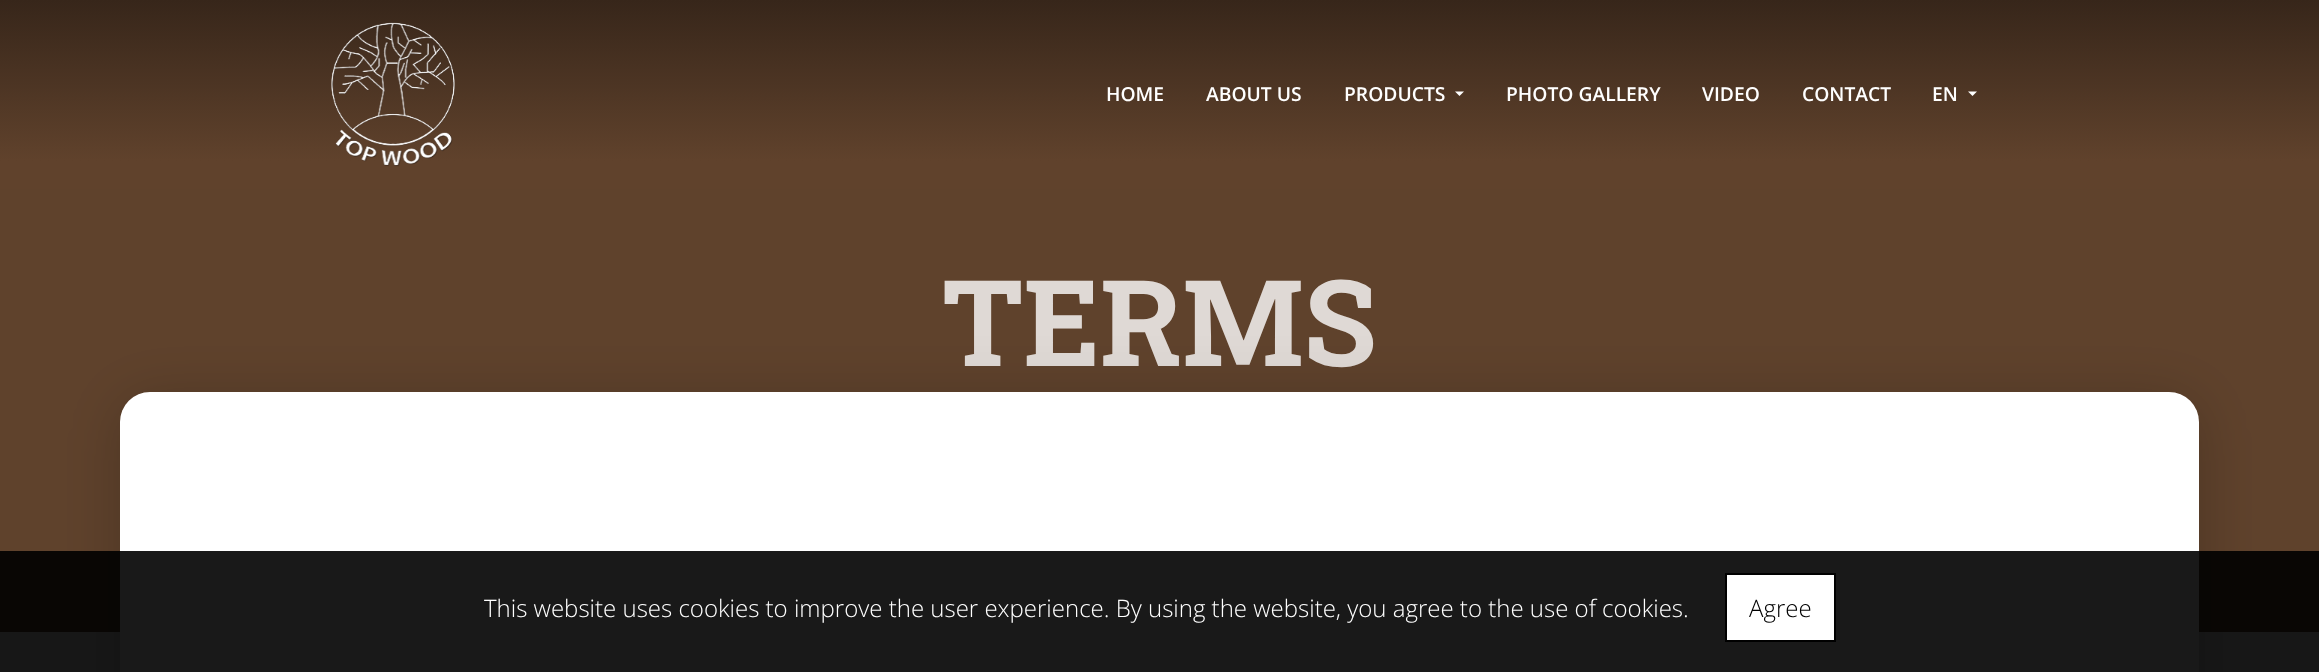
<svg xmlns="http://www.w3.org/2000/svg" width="2319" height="672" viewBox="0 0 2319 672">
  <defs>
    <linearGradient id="g1" gradientUnits="userSpaceOnUse" x1="1160" y1="0" x2="1160" y2="189"><stop offset="0" stop-color="#37261a"/><stop offset="0.85" stop-color="#60422c"/></linearGradient>
    <filter id="blur1" x="-50%" y="-200%" width="200%" height="500%"><feGaussianBlur stdDeviation="30"/></filter>
  </defs>
  <rect width="100%" height="100%" fill="#ececec"/>
  <rect x="0" y="0" width="2319" height="189" fill="url(#g1)"/>
  <image x="331" y="22" width="124" height="145" href="img1.png"/>
  <text x="1106" y="101" font-family="Open Sans" font-size="19.25" font-weight="600" fill="#ffffff">HOME</text>
  <text x="1206" y="101" font-family="Open Sans" font-size="19.25" font-weight="600" fill="#ffffff">ABOUT US</text>
  <text x="1344" y="101" font-family="Open Sans" font-size="19.25" font-weight="600" fill="#ffffff">PRODUCTS</text>
  <path d="M1455 91.5H1464L1459.5 96Z" fill="#ffffff"/>
  <text x="1506" y="101" font-family="Open Sans" font-size="19.25" font-weight="600" fill="#ffffff">PHOTO GALLERY</text>
  <text x="1702" y="101" font-family="Open Sans" font-size="19.25" font-weight="600" fill="#ffffff">VIDEO</text>
  <text x="1802" y="101" font-family="Open Sans" font-size="19.25" font-weight="600" fill="#ffffff">CONTACT</text>
  <text x="1932" y="101" font-family="Open Sans" font-size="19.25" font-weight="600" fill="#ffffff">EN</text>
  <path d="M1968 91.5H1977L1972.5 96Z" fill="#ffffff"/>
  <rect x="0" y="189" width="2319" height="443" fill="#5f422c"/>
  <text x="942" y="366" font-family="Roboto Slab" font-size="120" font-weight="bold" fill="#dfd9d5">TERMS</text>
  <rect x="120" y="399" width="2079" height="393" rx="30" fill="#000000" fill-opacity="0.2" filter="url(#blur1)"/>
  <rect x="120" y="392" width="2079" height="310" rx="30" fill="#ffffff"/>
  <rect x="0" y="551" width="2319" height="121" fill="#000000" fill-opacity="0.9"/>
  <text x="484" y="617" font-family="Open Sans" font-size="24" font-weight="300" fill="#ffffff">This website uses cookies to improve the user experience. By using the website, you agree to the use of cookies.</text>
  <rect x="1726" y="574" width="109" height="67" fill="#ffffff" stroke="#000000" stroke-width="2"/>
  <text x="1749" y="617" font-family="Open Sans" font-size="24" font-weight="300" fill="#000000">Agree</text>
</svg>
